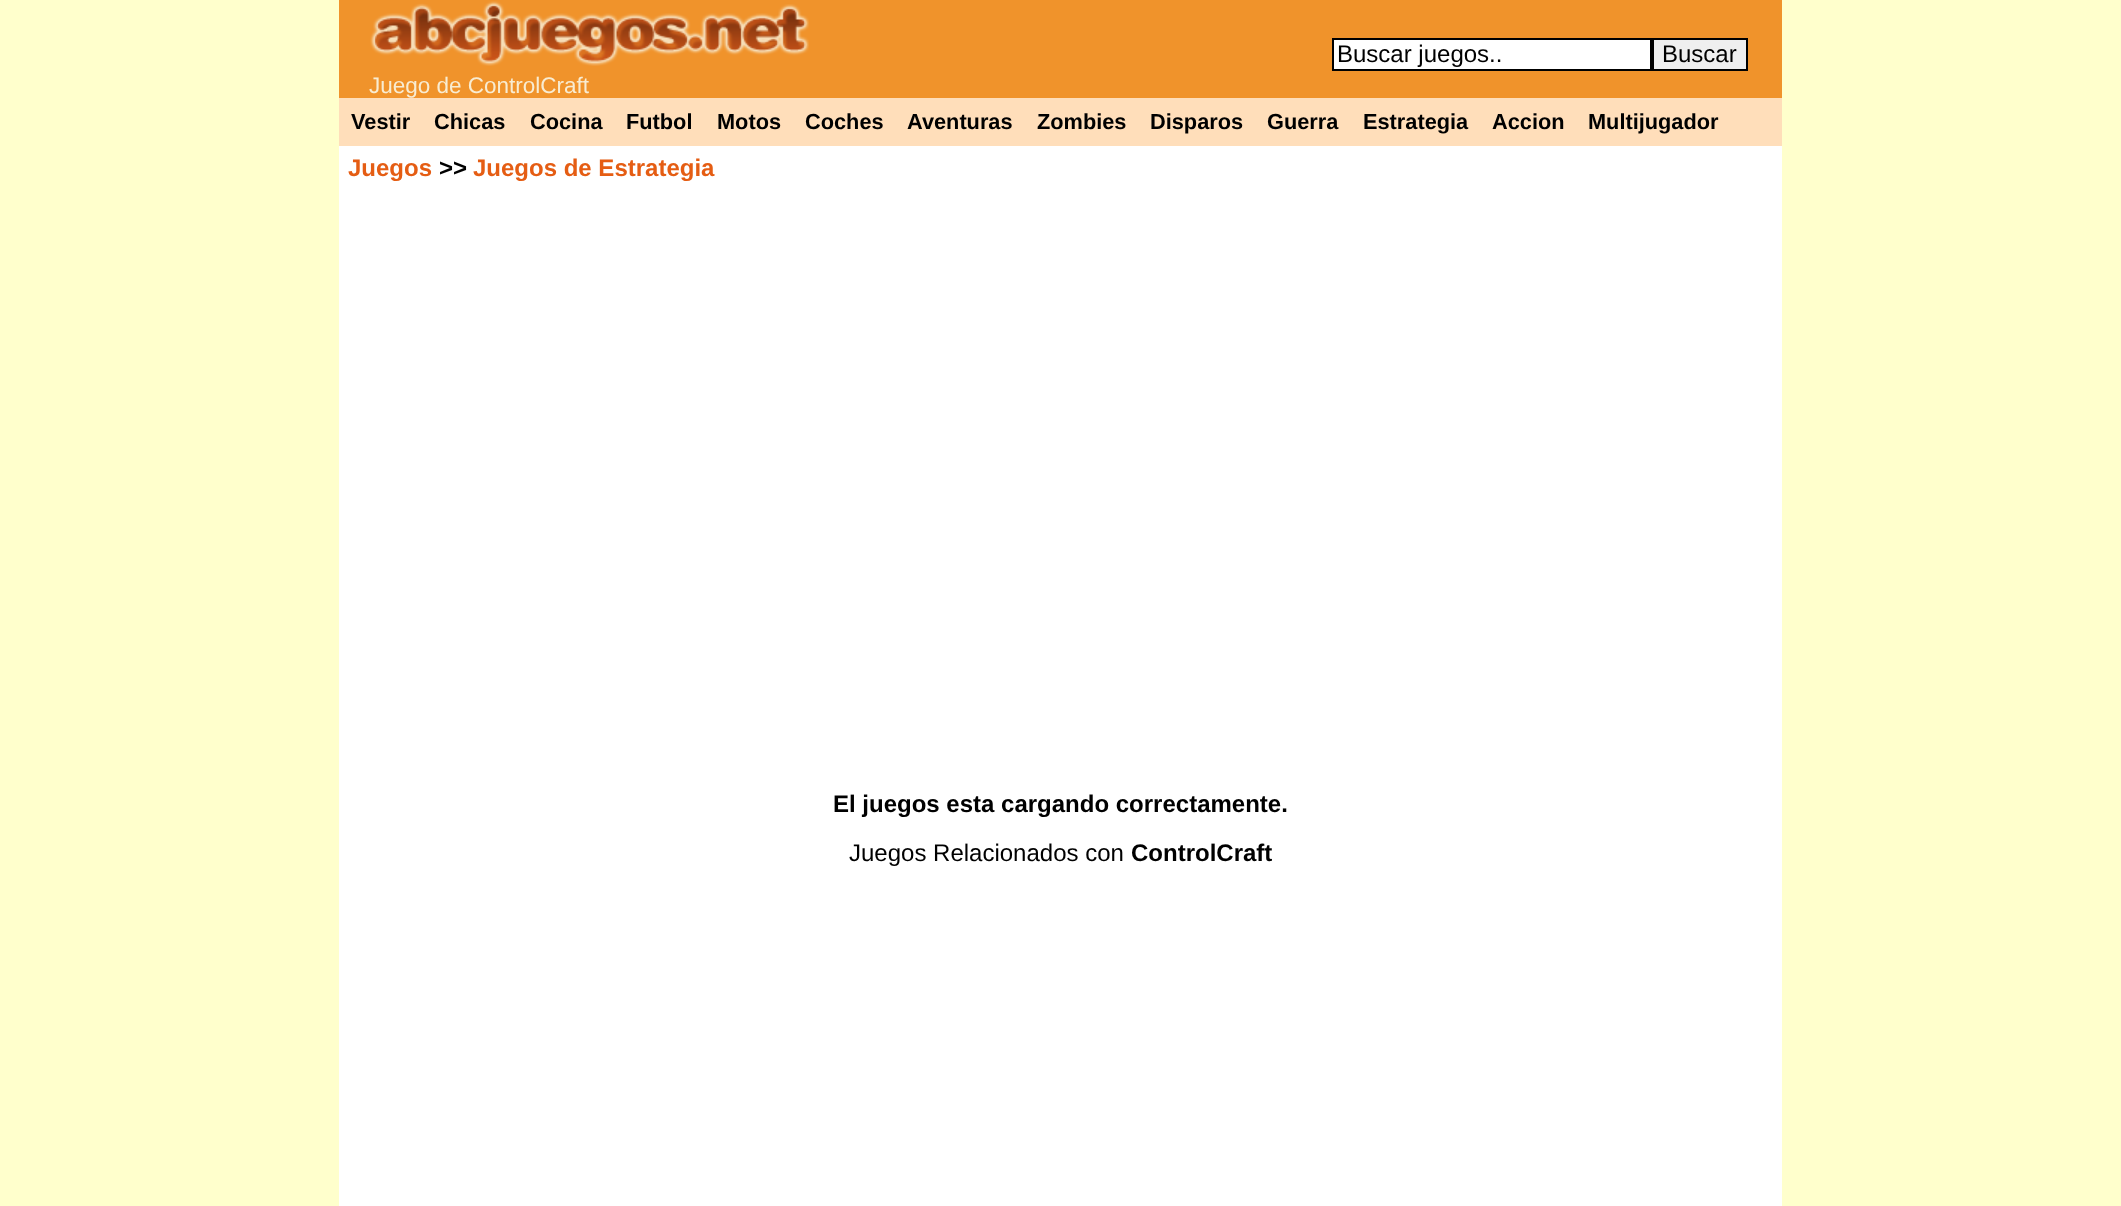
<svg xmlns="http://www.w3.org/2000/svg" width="2121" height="1206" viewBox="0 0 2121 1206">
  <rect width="100%" height="100%" fill="#ffffcc"/>
  <rect x="339" y="0" width="1443" height="98" fill="#f0932b"/>
  <rect x="1333" y="39" width="318" height="31" fill="#ffffff" stroke="#000000" stroke-width="2"/>
  <text x="1337" y="62" font-family="Liberation Sans" font-size="24" fill="#000000">Buscar juegos..</text>
  <rect x="1653" y="39" width="94" height="31" fill="#efefef" stroke="#000000" stroke-width="2"/>
  <text x="1662" y="62" font-family="Liberation Sans" font-size="24" fill="#000000">Buscar</text>
  <image x="370" y="1" width="439" height="65" href="img1.png"/>
  <text x="369" y="93" font-family="Liberation Sans" font-size="22.5" fill="#f8ecd2">Juego de ControlCraft</text>
  <rect x="339" y="98" width="1443" height="48" fill="#ffdeba"/>
  <text x="351" y="129" font-family="Liberation Sans" font-size="21.75" font-weight="bold" fill="#000000">Vestir</text>
  <text x="434" y="129" font-family="Liberation Sans" font-size="21.75" font-weight="bold" fill="#000000">Chicas</text>
  <text x="530" y="129" font-family="Liberation Sans" font-size="21.75" font-weight="bold" fill="#000000">Cocina</text>
  <text x="626" y="129" font-family="Liberation Sans" font-size="21.75" font-weight="bold" fill="#000000">Futbol</text>
  <text x="717" y="129" font-family="Liberation Sans" font-size="21.75" font-weight="bold" fill="#000000">Motos</text>
  <text x="805" y="129" font-family="Liberation Sans" font-size="21.75" font-weight="bold" fill="#000000">Coches</text>
  <text x="907" y="129" font-family="Liberation Sans" font-size="21.75" font-weight="bold" fill="#000000">Aventuras</text>
  <text x="1037" y="129" font-family="Liberation Sans" font-size="21.75" font-weight="bold" fill="#000000">Zombies</text>
  <text x="1150" y="129" font-family="Liberation Sans" font-size="21.75" font-weight="bold" fill="#000000">Disparos</text>
  <text x="1267" y="129" font-family="Liberation Sans" font-size="21.75" font-weight="bold" fill="#000000">Guerra</text>
  <text x="1363" y="129" font-family="Liberation Sans" font-size="21.75" font-weight="bold" fill="#000000">Estrategia</text>
  <text x="1492" y="129" font-family="Liberation Sans" font-size="21.75" font-weight="bold" fill="#000000">Accion</text>
  <text x="1588" y="129" font-family="Liberation Sans" font-size="21.75" font-weight="bold" fill="#000000">Multijugador</text>
  <rect x="339" y="146" width="1443" height="1060" fill="#ffffff"/>
  <text x="348" y="176" font-family="Liberation Sans" font-size="24" font-weight="bold" fill="#e55d13">Juegos</text>
  <text x="439" y="176" font-family="Liberation Sans" font-size="24" font-weight="bold" fill="#000000">&gt;&gt;</text>
  <text x="473" y="176" font-family="Liberation Sans" font-size="24" font-weight="bold" fill="#e55d13">Juegos de Estrategia</text>
  <text x="833" y="812" font-family="Liberation Sans" font-size="24" font-weight="bold" fill="#000000">El juegos esta cargando correctamente.</text>
  <text x="849" y="861" font-family="Liberation Sans" font-size="24" fill="#000000">Juegos Relacionados con</text>
  <text x="1131" y="861" font-family="Liberation Sans" font-size="24" font-weight="bold" fill="#000000">ControlCraft</text>
</svg>
